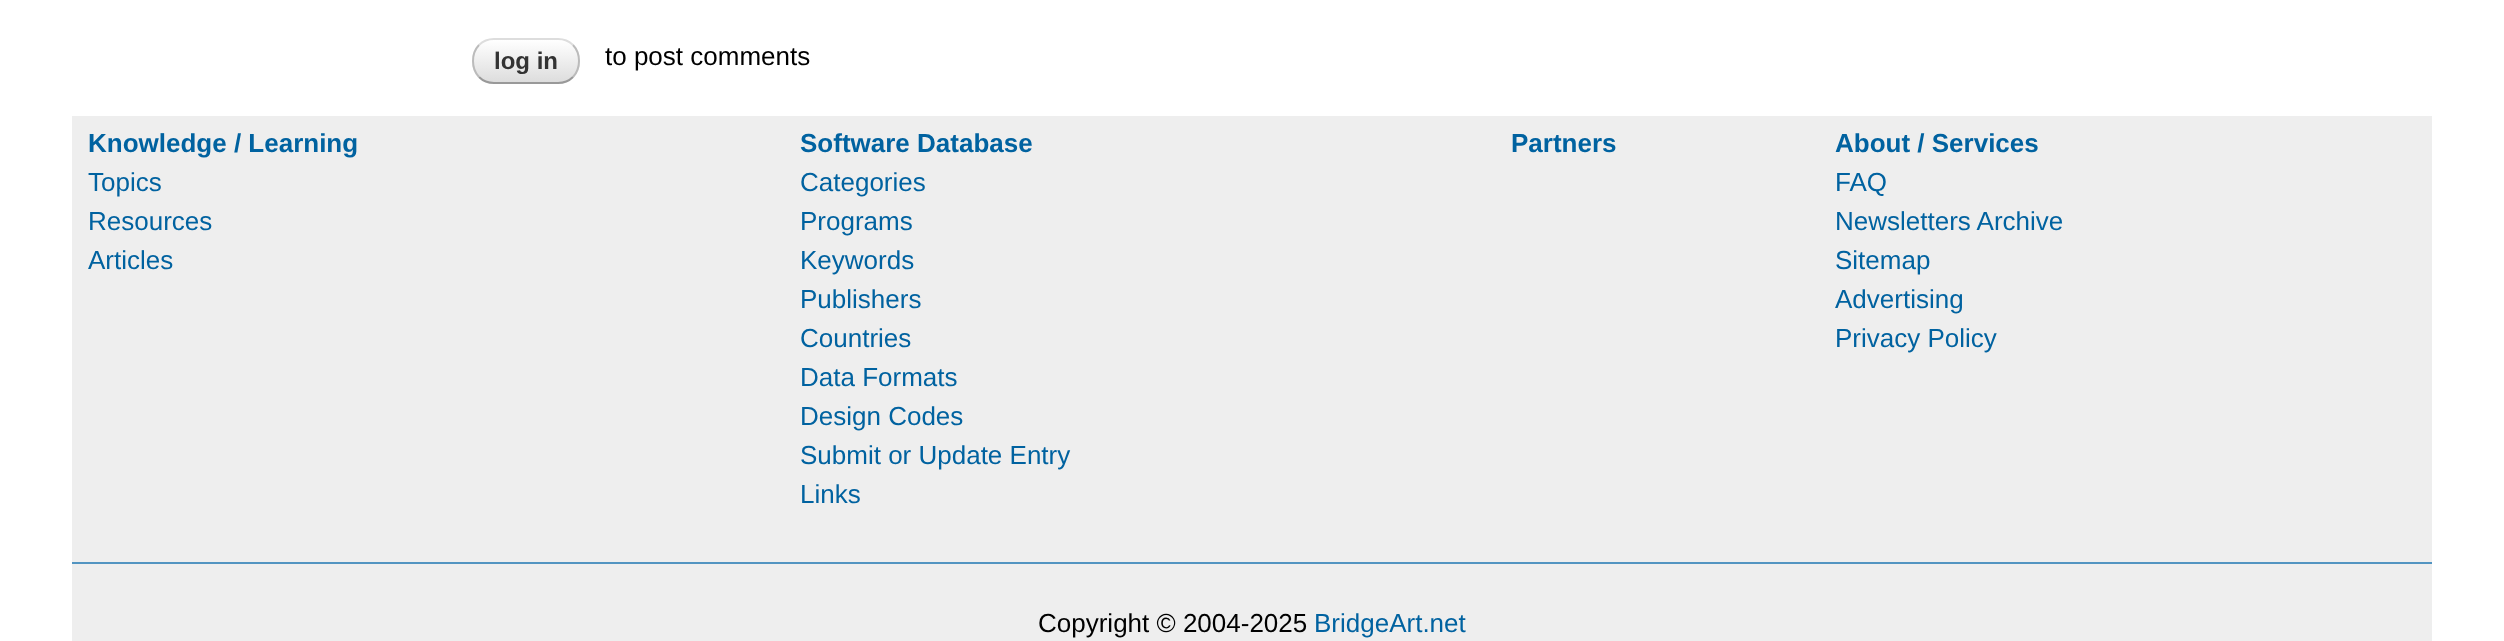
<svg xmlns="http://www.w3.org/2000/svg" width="2504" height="641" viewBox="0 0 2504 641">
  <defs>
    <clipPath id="clip1"><rect x="472" y="38" width="108" height="46" rx="22"/></clipPath>
    <linearGradient id="g1" gradientUnits="userSpaceOnUse" x1="474" y1="40" x2="474" y2="82"><stop offset="0" stop-color="#ffffff"/><stop offset="1" stop-color="#dddddd"/></linearGradient>
  </defs>
  <rect width="100%" height="100%" fill="#ffffff"/>
  <g clip-path="url(#clip1)">
    <rect x="472" y="40" width="108" height="42" fill="url(#g1)"/>
  </g>
  <path d="M479 45C483 41 488.5 39 494 39H558C563.5 39 569 41 573 45" fill="none" stroke="#dddddd" stroke-width="2"/>
  <path d="M573 45C581 53.5 581 68.5 573 77" fill="none" stroke="#bbbbbb" stroke-width="2"/>
  <path d="M573 77C569 81 563.5 83 558 83H494C488.5 83 483 81 479 77" fill="none" stroke="#999999" stroke-width="2"/>
  <path d="M479 77C471 68.5 471 53.5 479 45" fill="none" stroke="#bbbbbb" stroke-width="2"/>
  <text x="494" y="69" font-family="Liberation Sans" font-size="24" font-weight="bold" fill="#333333">log in</text>
  <text x="605" y="65" font-family="Liberation Sans" font-size="26" fill="#000000">to post comments</text>
  <rect x="72" y="116" width="2360" height="525" fill="#eeeeee"/>
  <text x="88" y="152" font-family="Liberation Sans" font-size="26" font-weight="bold" fill="#0062a0">Knowledge / Learning</text>
  <text x="88" y="191" font-family="Liberation Sans" font-size="26" fill="#0062a0">Topics</text>
  <text x="88" y="230" font-family="Liberation Sans" font-size="26" fill="#0062a0">Resources</text>
  <text x="88" y="269" font-family="Liberation Sans" font-size="26" fill="#0062a0">Articles</text>
  <text x="800" y="152" font-family="Liberation Sans" font-size="26" font-weight="bold" fill="#0062a0">Software Database</text>
  <text x="800" y="191" font-family="Liberation Sans" font-size="26" fill="#0062a0">Categories</text>
  <text x="800" y="230" font-family="Liberation Sans" font-size="26" fill="#0062a0">Programs</text>
  <text x="800" y="269" font-family="Liberation Sans" font-size="26" fill="#0062a0">Keywords</text>
  <text x="800" y="308" font-family="Liberation Sans" font-size="26" fill="#0062a0">Publishers</text>
  <text x="800" y="347" font-family="Liberation Sans" font-size="26" fill="#0062a0">Countries</text>
  <text x="800" y="386" font-family="Liberation Sans" font-size="26" fill="#0062a0">Data Formats</text>
  <text x="800" y="425" font-family="Liberation Sans" font-size="26" fill="#0062a0">Design Codes</text>
  <text x="800" y="464" font-family="Liberation Sans" font-size="26" fill="#0062a0">Submit or Update Entry</text>
  <text x="800" y="503" font-family="Liberation Sans" font-size="26" fill="#0062a0">Links</text>
  <text x="1511" y="152" font-family="Liberation Sans" font-size="26" font-weight="bold" fill="#0062a0">Partners</text>
  <text x="1835" y="152" font-family="Liberation Sans" font-size="26" font-weight="bold" fill="#0062a0">About / Services</text>
  <text x="1835" y="191" font-family="Liberation Sans" font-size="26" fill="#0062a0">FAQ</text>
  <text x="1835" y="230" font-family="Liberation Sans" font-size="26" fill="#0062a0">Newsletters Archive</text>
  <text x="1835" y="269" font-family="Liberation Sans" font-size="26" fill="#0062a0">Sitemap</text>
  <text x="1835" y="308" font-family="Liberation Sans" font-size="26" fill="#0062a0">Advertising</text>
  <text x="1835" y="347" font-family="Liberation Sans" font-size="26" fill="#0062a0">Privacy Policy</text>
  <rect x="72" y="562" width="2360" height="2" fill="#5294c1"/>
  <text x="1038" y="632" font-family="Liberation Sans" font-size="26" fill="#000000">Copyright © 2004-2025</text>
  <text x="1314" y="632" font-family="Liberation Sans" font-size="26" fill="#0062a0">BridgeArt.net</text>
</svg>
